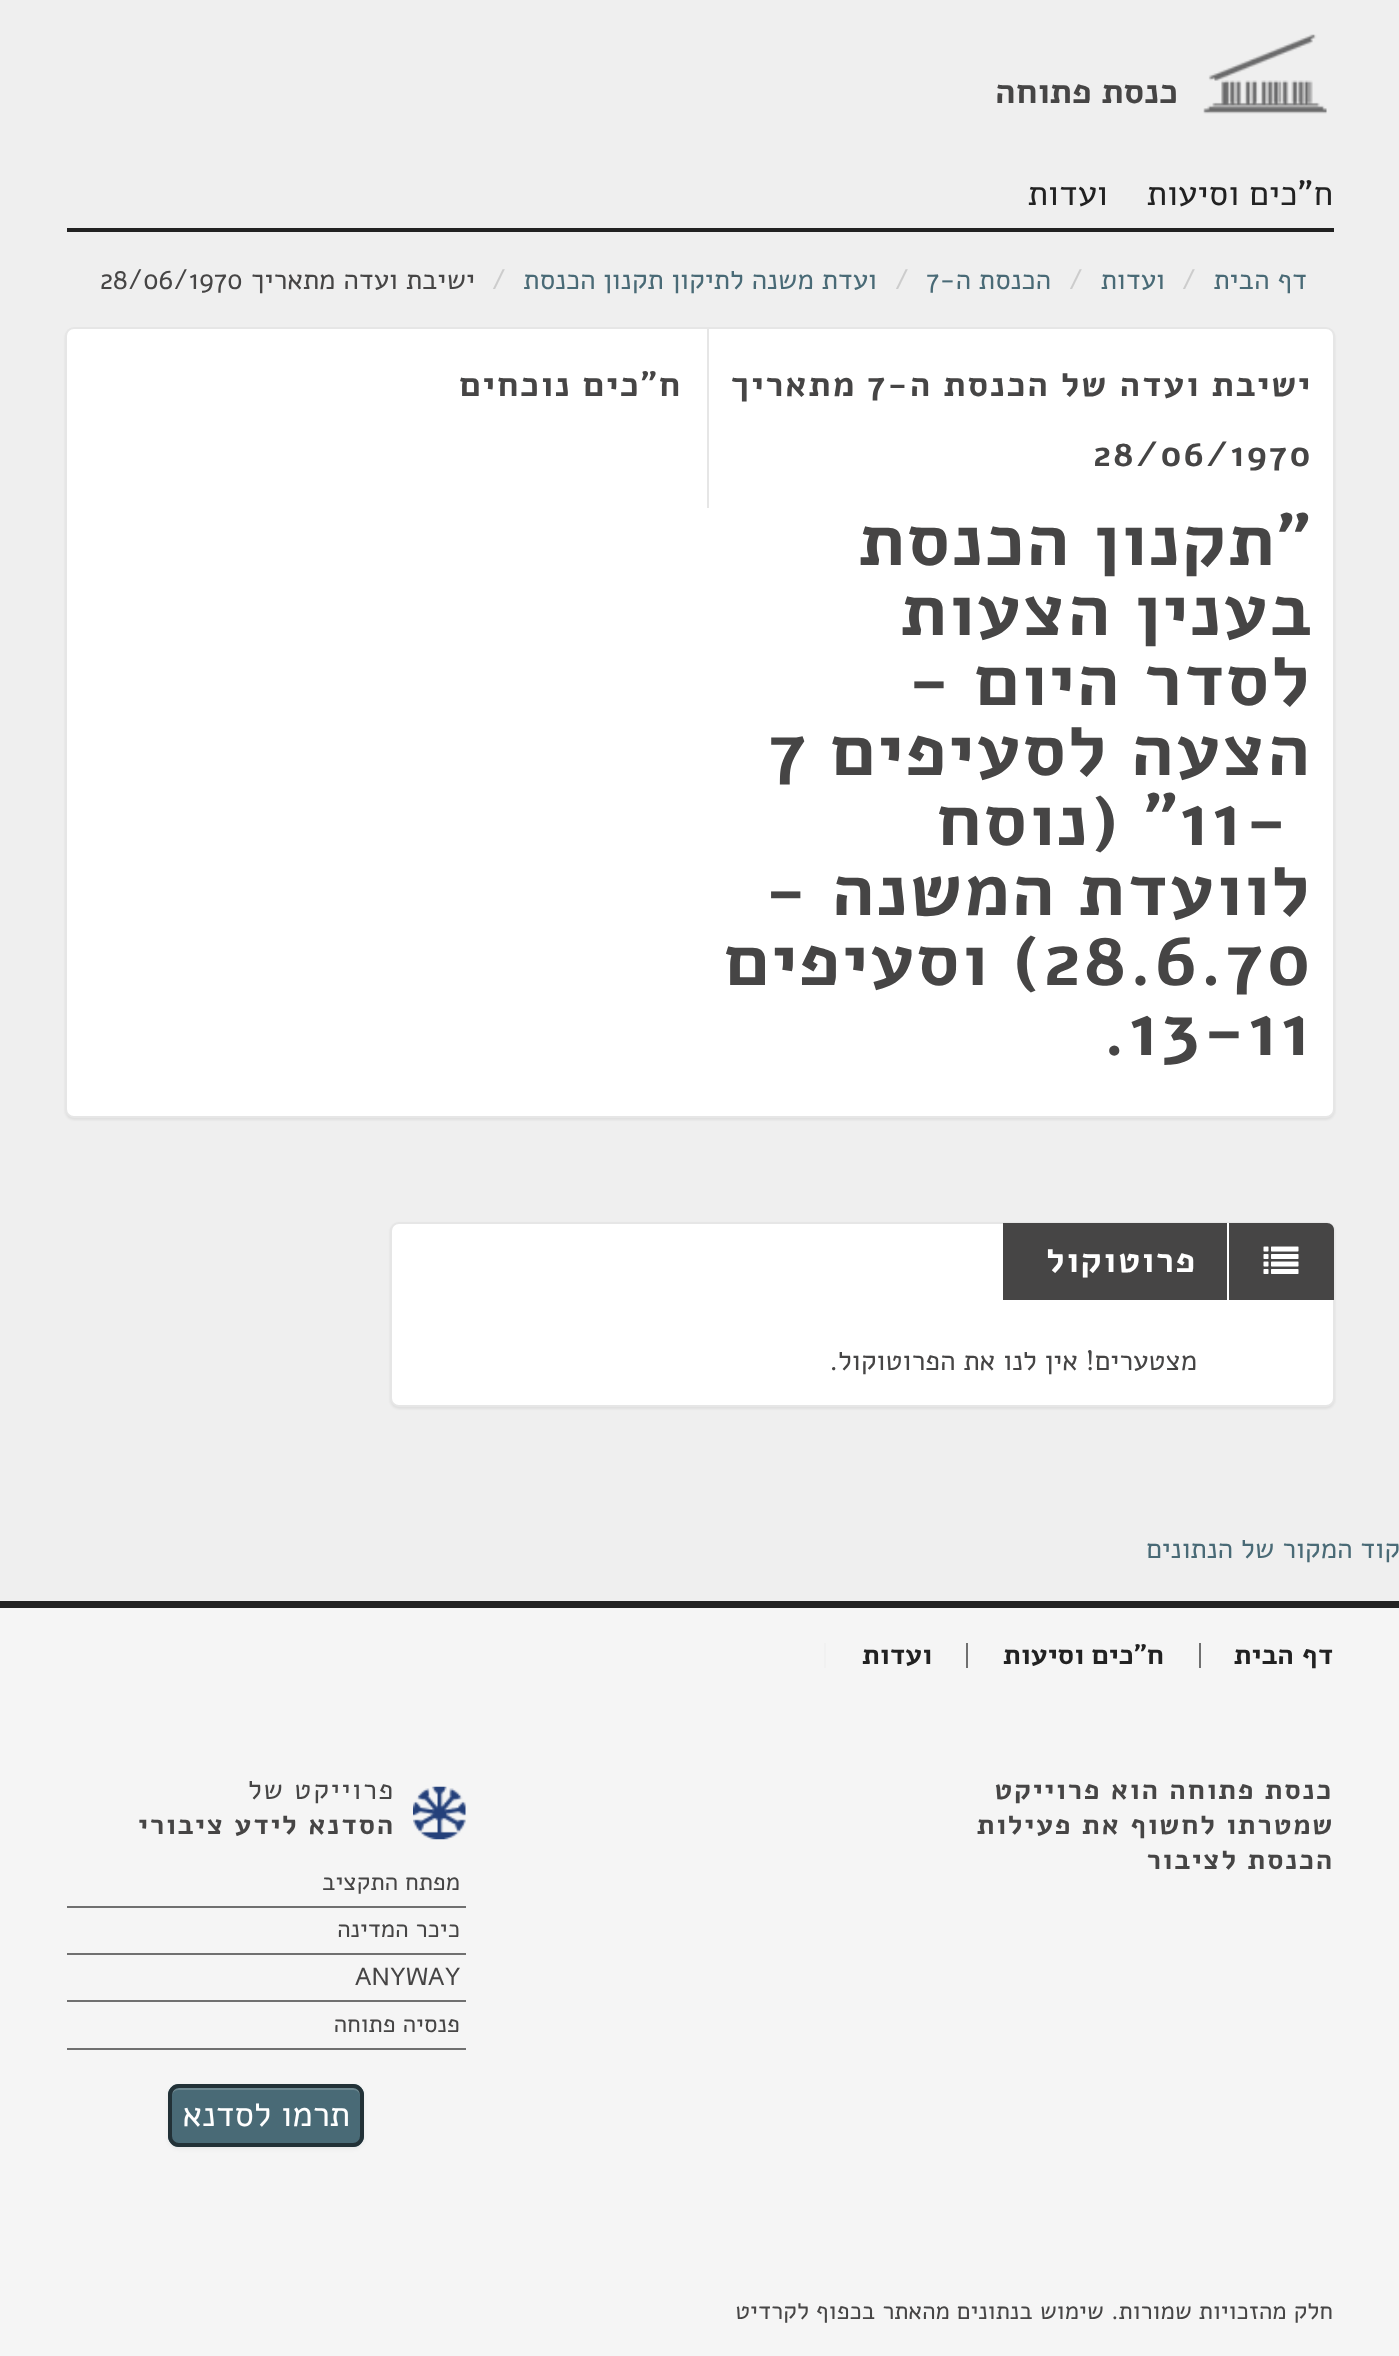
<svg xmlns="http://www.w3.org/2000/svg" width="1399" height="2356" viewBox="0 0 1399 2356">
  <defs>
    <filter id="blur1" x="-50%" y="-200%" width="200%" height="500%"><feGaussianBlur stdDeviation="1"/></filter>
    <filter id="blur2" x="-50%" y="-200%" width="200%" height="500%"><feGaussianBlur stdDeviation="2"/></filter>
  </defs>
  <rect width="100%" height="100%" fill="#efefef"/>
  <rect x="67" y="228" width="1267" height="4" fill="#222222"/>
  <image x="1203" y="34" width="124" height="80" href="img1.png"/>
  <text x="1178" y="103" font-family="Alef" font-size="35" font-weight="bold" direction="rtl" fill="#464545">כנסת פתוחה</text>
  <text x="1333" y="205" font-family="Alef" font-size="35" direction="rtl" fill="#222222">ח"כים וסיעות</text>
  <text x="1108" y="205" font-family="Alef" font-size="35" direction="rtl" fill="#222222">ועדות</text>
  <text x="1307" y="289" font-family="Alef" font-size="28" direction="rtl" fill="#496a76">דף הבית</text>
  <text x="1181" y="289" font-family="Alef" font-size="28" fill="#cccccc">/</text>
  <text x="1165" y="289" font-family="Alef" font-size="28" direction="rtl" fill="#496a76">ועדות</text>
  <text x="1068" y="289" font-family="Alef" font-size="28" fill="#cccccc">/</text>
  <text x="1051" y="289" font-family="Alef" font-size="28" direction="rtl" fill="#496a76">הכנסת ה-</text>
  <text x="926" y="289" font-family="Alef" font-size="28" fill="#496a76">7</text>
  <text x="894" y="289" font-family="Alef" font-size="28" fill="#cccccc">/</text>
  <text x="877" y="289" font-family="Alef" font-size="28" direction="rtl" fill="#496a76">ועדת משנה לתיקון תקנון הכנסת</text>
  <text x="491" y="289" font-family="Alef" font-size="28" fill="#cccccc">/</text>
  <text x="475" y="289" font-family="Alef" font-size="28" direction="rtl" fill="#464545">ישיבת ועדה מתאריך</text>
  <text x="100" y="289" font-family="Alef" font-size="28" fill="#464545">28/06/1970</text>
  <rect x="65" y="329" width="1270" height="791" rx="9" fill="#000000" fill-opacity="0.07" filter="url(#blur1)"/>
  <rect x="66" y="328" width="1268" height="789" rx="8" fill="#ffffff" stroke="#e6e6e6" stroke-width="2"/>
  <text x="1312" y="396" font-family="Alef" font-size="35" font-weight="bold" letter-spacing="1.75" direction="rtl" fill="#464545">ישיבת ועדה של הכנסת ה-</text>
  <text x="867" y="396" font-family="Alef" font-size="35" font-weight="bold" letter-spacing="1.75" fill="#464545">7</text>
  <text x="856" y="396" font-family="Alef" font-size="35" font-weight="bold" letter-spacing="1.75" direction="rtl" fill="#464545">מתאריך</text>
  <text x="1093" y="466" font-family="Alef" font-size="35" font-weight="bold" letter-spacing="1.75" fill="#464545">28/06/1970</text>
  <text x="1312" y="565" font-family="Alef" font-size="73.5" font-weight="bold" letter-spacing="1.75" direction="rtl" fill="#464545">״תקנון הכנסת</text>
  <text x="1313" y="635" font-family="Alef" font-size="73.5" font-weight="bold" letter-spacing="1.75" direction="rtl" fill="#464545">בענין הצעות</text>
  <text x="1312" y="705" font-family="Alef" font-size="73.5" font-weight="bold" letter-spacing="1.75" direction="rtl" fill="#464545">לסדר היום -</text>
  <text x="1312" y="775" font-family="Alef" font-size="73.5" font-weight="bold" letter-spacing="1.75" direction="rtl" fill="#464545">הצעה לסעיפים</text>
  <text x="768" y="775" font-family="Alef" font-size="73.5" font-weight="bold" letter-spacing="1.75" fill="#464545">7</text>
  <text x="1179" y="845" font-family="Alef" font-size="73.5" font-weight="bold" letter-spacing="1.75" fill="#464545">11-</text>
  <text x="1179" y="845" font-family="Alef" font-size="73.5" font-weight="bold" letter-spacing="1.75" direction="rtl" fill="#464545">״ (נוסח</text>
  <text x="1312" y="915" font-family="Alef" font-size="73.5" font-weight="bold" letter-spacing="1.75" direction="rtl" fill="#464545">לוועדת המשנה -</text>
  <text x="1043" y="985" font-family="Alef" font-size="73.5" font-weight="bold" letter-spacing="1.75" fill="#464545">28.6.70</text>
  <text x="1043" y="985" font-family="Alef" font-size="73.5" font-weight="bold" letter-spacing="1.75" direction="rtl" fill="#464545">) וסעיפים</text>
  <text x="1102" y="1055" font-family="Alef" font-size="73.5" font-weight="bold" letter-spacing="1.75" fill="#464545">.13-11</text>
  <rect x="707" y="329" width="2" height="179" fill="#e6e6e6"/>
  <text x="682" y="396" font-family="Alef" font-size="35" font-weight="bold" letter-spacing="1.75" direction="rtl" fill="#464545">ח"כים נוכחים</text>
  <rect x="390" y="1223" width="945" height="186" rx="9" fill="#000000" fill-opacity="0.07" filter="url(#blur1)"/>
  <rect x="391" y="1223" width="943" height="183" rx="8" fill="#ffffff" stroke="#e6e6e6" stroke-width="2"/>
  <path d="M1003 1223H1327C1331 1223 1334 1226 1334 1230V1300H1003Z" fill="#464545"/>
  <rect x="1227" y="1223" width="2" height="77" fill="#ffffff"/>
  <image x="1263" y="1246" width="36" height="28" href="img2.png"/>
  <text x="1197" y="1272" font-family="Alef" font-size="35" font-weight="bold" letter-spacing="1.75" direction="rtl" fill="#ffffff">פרוטוקול</text>
  <text x="1197" y="1370" font-family="Alef" font-size="28" direction="rtl" fill="#464545">מצטערים! אין לנו את הפרוטוקול.</text>
  <text x="1400" y="1558" font-family="Alef" font-size="28" direction="rtl" fill="#496a76">קוד המקור של הנתונים</text>
  <rect x="0" y="1608" width="1399" height="748" fill="#f5f5f5"/>
  <rect x="0" y="1601" width="1399" height="7" fill="#222222"/>
  <text x="1333" y="1664" font-family="Alef" font-size="28" font-weight="bold" direction="rtl" fill="#222222">דף הבית</text>
  <rect x="1199" y="1643" width="2" height="25" fill="#707070"/>
  <text x="1164" y="1664" font-family="Alef" font-size="28" font-weight="bold" direction="rtl" fill="#222222">ח"כים וסיעות</text>
  <rect x="966" y="1643" width="2" height="25" fill="#707070"/>
  <rect x="824" y="1643" width="2" height="25" fill="#f1f1f1"/>
  <text x="932" y="1664" font-family="Alef" font-size="28" font-weight="bold" direction="rtl" fill="#222222">ועדות</text>
  <text x="1333" y="1799" font-family="Alef" font-size="28" font-weight="bold" letter-spacing="1.75" direction="rtl" fill="#464545">כנסת פתוחה הוא פרוייקט</text>
  <text x="1334" y="1834" font-family="Alef" font-size="28" font-weight="bold" letter-spacing="1.75" direction="rtl" fill="#464545">שמטרתו לחשוף את פעילות</text>
  <text x="1334" y="1869" font-family="Alef" font-size="28" font-weight="bold" letter-spacing="1.75" direction="rtl" fill="#464545">הכנסת לציבור</text>
  <image x="413" y="1786" width="53" height="54" href="img3.png"/>
  <text x="395" y="1799" font-family="Alef" font-size="28" letter-spacing="1.75" direction="rtl" fill="#464545">פרוייקט של</text>
  <text x="395" y="1834" font-family="Alef" font-size="28" font-weight="bold" letter-spacing="1.75" direction="rtl" fill="#464545">הסדנא לידע ציבורי</text>
  <rect x="67" y="1906" width="399" height="2" fill="#707070"/>
  <text x="460" y="1890" font-family="Alef" font-size="24.5" direction="rtl" fill="#464545">מפתח התקציב</text>
  <rect x="67" y="1953" width="399" height="2" fill="#707070"/>
  <text x="460" y="1937" font-family="Alef" font-size="24.5" direction="rtl" fill="#464545">כיכר המדינה</text>
  <rect x="67" y="2000" width="399" height="2" fill="#707070"/>
  <text x="355" y="1985" font-family="Alef" font-size="24.5" fill="#464545">ANYWAY</text>
  <rect x="67" y="2048" width="399" height="2" fill="#707070"/>
  <text x="460" y="2032" font-family="Alef" font-size="24.5" direction="rtl" fill="#464545">פנסיה פתוחה</text>
  <rect x="168" y="2086" width="196" height="63" rx="11" fill="#000000" fill-opacity="0.05" filter="url(#blur2)"/>
  <rect x="168" y="2084" width="196" height="63" rx="11" fill="#496a76"/>
  <path d="M178 2090H354C357 2090 360 2093 360 2096V2138L359 2142C360 2140 361 2139 361 2137V2095C361 2091 358 2088 354 2088H179C175 2088 172 2091 172 2095V2096C172 2093 175 2090 178 2090Z" fill="#6d8891"/>
  <rect x="170" y="2086" width="192" height="59" rx="9" fill="none" stroke="#223137" stroke-width="4"/>
  <text x="350" y="2126" font-family="Alef" font-size="35" direction="rtl" fill="#ffffff">תרמו לסדנא</text>
  <text x="1333" y="2319" font-family="Alef" font-size="24.5" direction="rtl" fill="#464545">חלק מהזכויות שמורות. שימוש בנתונים מהאתר בכפוף לקרדיט</text>
</svg>
